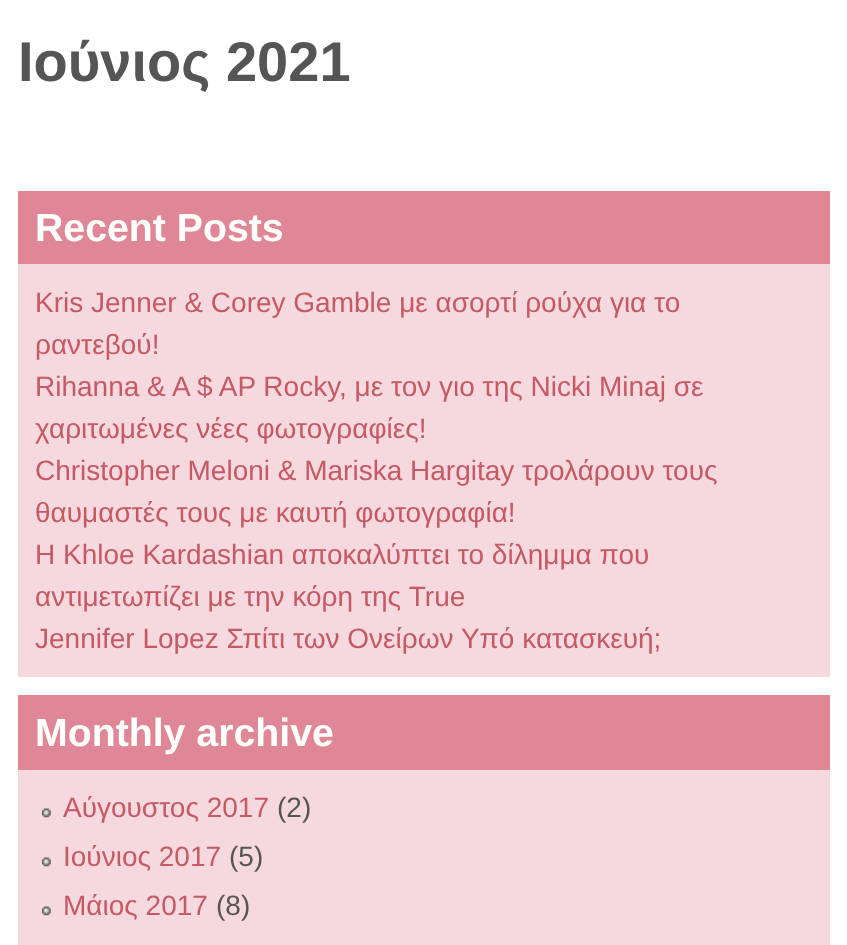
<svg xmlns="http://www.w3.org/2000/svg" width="847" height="945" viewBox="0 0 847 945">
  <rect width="100%" height="100%" fill="#ffffff"/>
  <text x="18" y="81" font-family="Liberation Sans" font-size="56" font-weight="bold" fill="#555555">Ιούνιος 2021</text>
  <rect x="18" y="264" width="812" height="413" fill="#f5d9de"/>
  <rect x="18" y="191" width="812" height="73" fill="#df8796"/>
  <text x="35" y="241" font-family="Liberation Sans" font-size="39.25" font-weight="bold" fill="#fffffc">Recent Posts</text>
  <text x="35" y="312" font-family="Liberation Sans" font-size="28" fill="#c55964">Kris Jenner &amp; Corey Gamble με ασορτί ρούχα για το</text>
  <text x="35" y="354" font-family="Liberation Sans" font-size="28" fill="#c55964">ραντεβού!</text>
  <text x="35" y="396" font-family="Liberation Sans" font-size="28" fill="#c55964">Rihanna &amp; A $ AP Rocky, με τον γιο της Nicki Minaj σε</text>
  <text x="35" y="438" font-family="Liberation Sans" font-size="28" fill="#c55964">χαριτωμένες νέες φωτογραφίες!</text>
  <text x="35" y="480" font-family="Liberation Sans" font-size="28" fill="#c55964">Christopher Meloni &amp; Mariska Hargitay τρολάρουν τους</text>
  <text x="35" y="522" font-family="Liberation Sans" font-size="28" fill="#c55964">θαυμαστές τους με καυτή φωτογραφία!</text>
  <text x="35" y="564" font-family="Liberation Sans" font-size="28" fill="#c55964">Η Khloe Kardashian αποκαλύπτει το δίλημμα που</text>
  <text x="35" y="606" font-family="Liberation Sans" font-size="28" fill="#c55964">αντιμετωπίζει με την κόρη της True</text>
  <text x="35" y="648" font-family="Liberation Sans" font-size="28" fill="#c55964">Jennifer Lopez Σπίτι των Ονείρων Υπό κατασκευή;</text>
  <rect x="18" y="770" width="812" height="175" fill="#f5d9de"/>
  <rect x="18" y="695" width="812" height="75" fill="#df8796"/>
  <text x="35" y="746" font-family="Liberation Sans" font-size="39.25" font-weight="bold" fill="#fffffc">Monthly archive</text>
  <image x="42" y="808" width="9" height="10" href="img1.png"/>
  <text x="63" y="817" font-family="Liberation Sans" font-size="28" fill="#c55964">Αύγουστος 2017</text>
  <text x="277" y="817" font-family="Liberation Sans" font-size="28" fill="#555555">(2)</text>
  <image x="42" y="857" width="9" height="10" href="img1.png"/>
  <text x="63" y="866" font-family="Liberation Sans" font-size="28" fill="#c55964">Ιούνιος 2017</text>
  <text x="229" y="866" font-family="Liberation Sans" font-size="28" fill="#555555">(5)</text>
  <image x="42" y="906" width="9" height="10" href="img1.png"/>
  <text x="63" y="915" font-family="Liberation Sans" font-size="28" fill="#c55964">Μάιος 2017</text>
  <text x="216" y="915" font-family="Liberation Sans" font-size="28" fill="#555555">(8)</text>
</svg>
